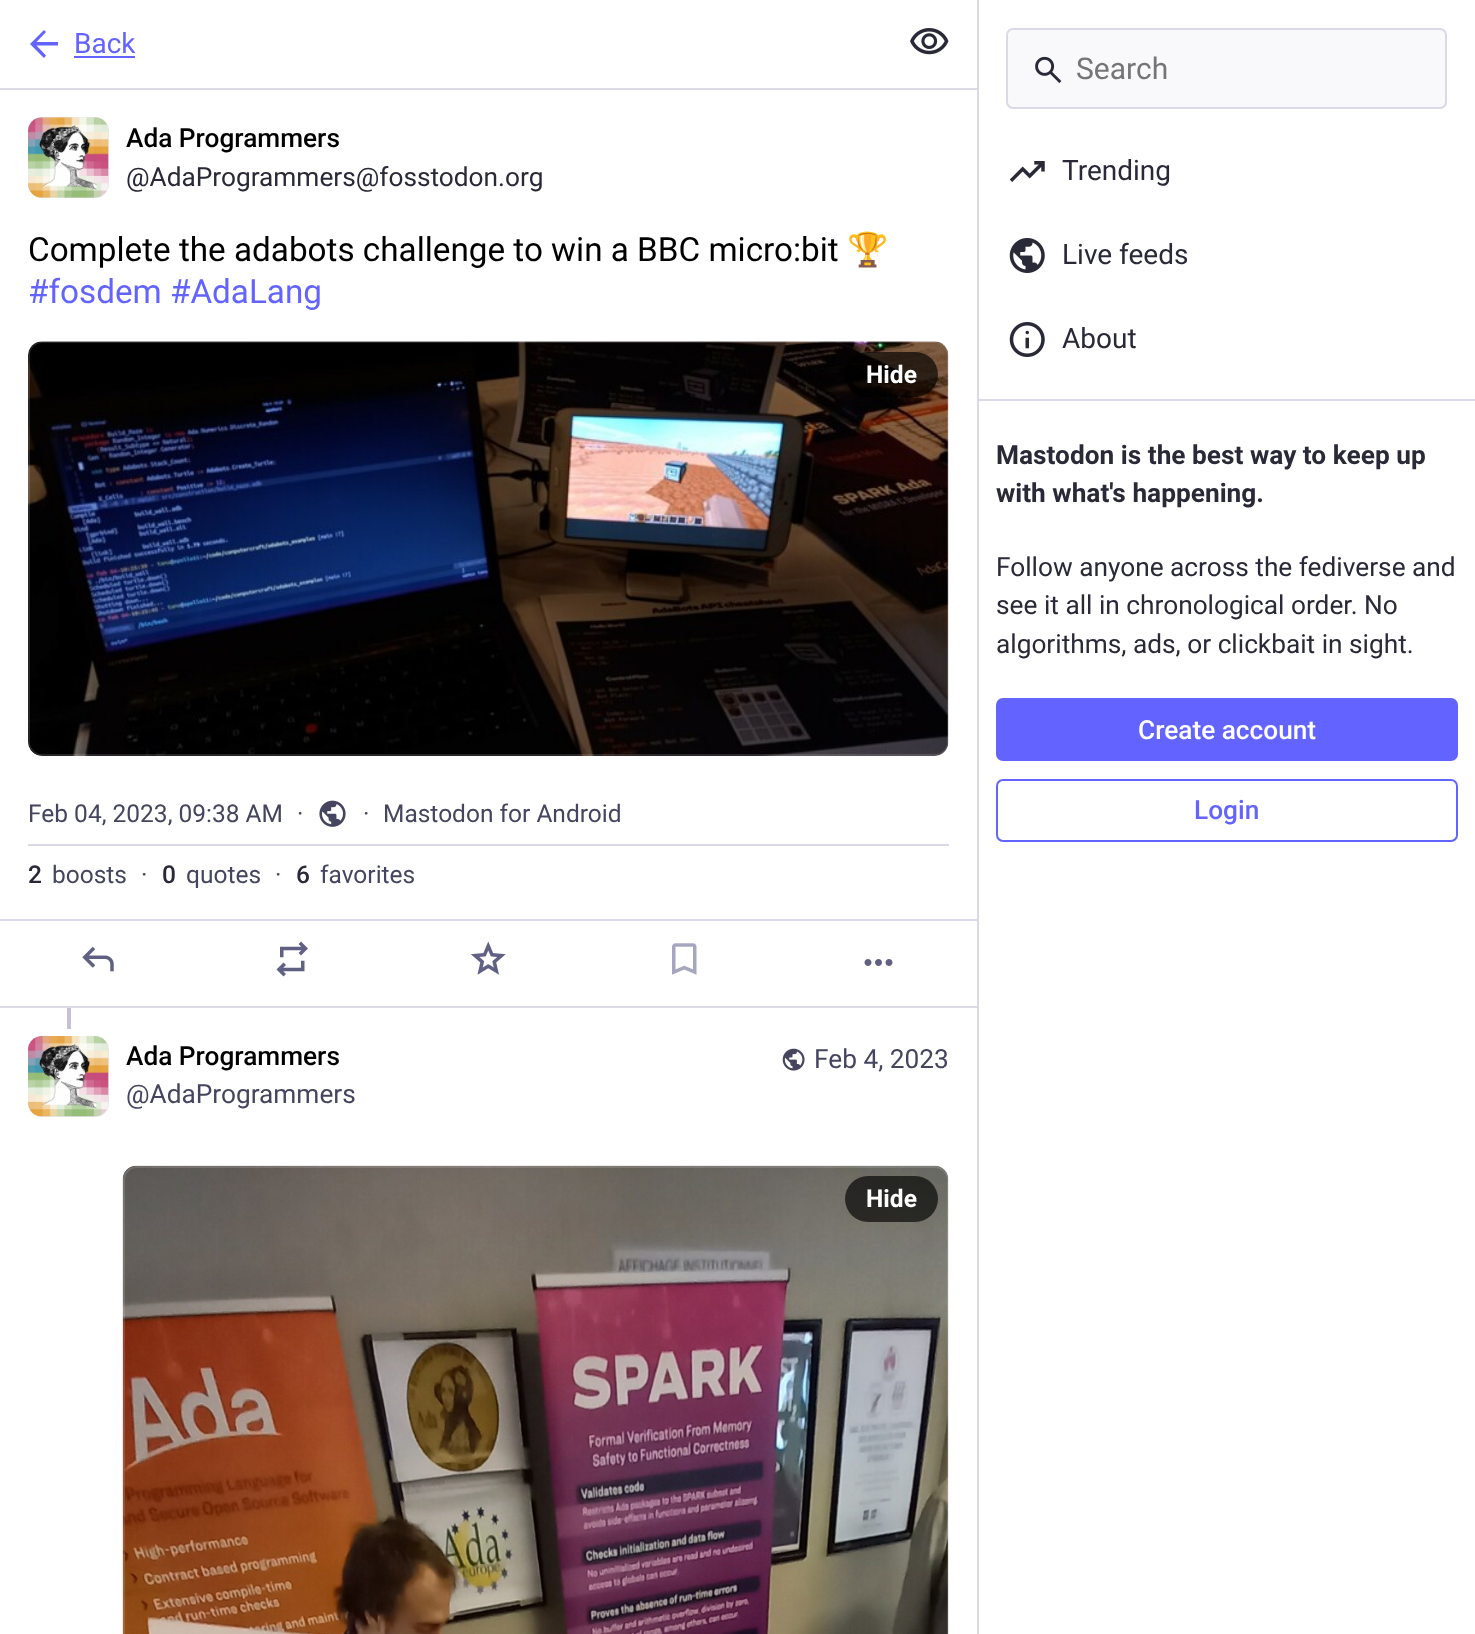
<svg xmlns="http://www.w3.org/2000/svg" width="1475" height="1634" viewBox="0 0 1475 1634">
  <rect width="100%" height="100%" fill="#ffffff"/>
  <rect x="0" y="88" width="977" height="2" fill="#d9d9e8"/>
  <path d="M36.5 45.5L46 55.5L44 58L30 44L44 30L46 32L36.5 42H58V45.5Z" fill="#6364ff"/>
  <text x="74" y="53" font-family="Roboto" font-size="28" fill="#6364ff">Back</text>
  <rect x="74" y="56" width="61" height="2" fill="#6364ff"/>
  <image x="910" y="28" width="39" height="27" href="img1.png"/>
  <rect x="28" y="117" width="81" height="81" rx="14" fill="#e8e6f0"/>
  <image x="28" y="117" width="81" height="81" href="img2.png"/>
  <text x="126" y="147" font-family="Roboto" font-size="26.25" font-weight="500" fill="#000000">Ada Programmers</text>
  <text x="126" y="186" font-family="Roboto" font-size="26.25" fill="#292938">@AdaProgrammers@fosstodon.org</text>
  <text x="28" y="261" font-family="Roboto" font-size="33.25" fill="#000000">Complete the adabots challenge to win a BBC micro:bit</text>
  <text x="847" y="261" font-family="Noto Color Emoji" font-size="33.25" fill="#000000">🏆</text>
  <text x="28" y="303" font-family="Roboto" font-size="33.25" fill="#6364ff">#fosdem #AdaLang</text>
  <image x="28" y="341" width="921" height="415" href="img3.png"/>
  <rect x="29" y="342" width="919" height="413" rx="13" fill="none" stroke="#fcf8ff" stroke-opacity="0.15" stroke-width="2"/>
  <rect x="845" y="352" width="93" height="45" rx="22.5" fill="#000000" fill-opacity="0.65"/>
  <text x="866" y="383" font-family="Roboto" font-size="24.5" font-weight="bold" fill="#ffffff">Hide</text>
  <rect x="28" y="844" width="921" height="2" fill="#d9d9e8"/>
  <text x="28" y="822" font-family="Roboto" font-size="24.5" fill="#45455f">Feb 04, 2023, 09:38 AM</text>
  <text x="297" y="822" font-family="Roboto" font-size="24.5" fill="#45455f">·</text>
  <image x="319" y="800" width="27" height="27" href="img4.png"/>
  <text x="363" y="822" font-family="Roboto" font-size="24.5" fill="#45455f">·</text>
  <text x="383" y="822" font-family="Roboto" font-size="24.5" fill="#45455f">Mastodon for Android</text>
  <text x="28" y="883" font-family="Roboto" font-size="24.5" font-weight="500" fill="#292938">2</text>
  <text x="52" y="883" font-family="Roboto" font-size="24.5" fill="#45455f">boosts</text>
  <text x="141" y="883" font-family="Roboto" font-size="24.5" fill="#45455f">·</text>
  <text x="162" y="883" font-family="Roboto" font-size="24.5" font-weight="500" fill="#292938">0</text>
  <text x="186" y="883" font-family="Roboto" font-size="24.5" fill="#45455f">quotes</text>
  <text x="275" y="883" font-family="Roboto" font-size="24.5" fill="#45455f">·</text>
  <text x="296" y="883" font-family="Roboto" font-size="24.5" font-weight="500" fill="#292938">6</text>
  <text x="320" y="883" font-family="Roboto" font-size="24.5" fill="#45455f">favorites</text>
  <rect x="0" y="919" width="977" height="2" fill="#d9d9e8"/>
  <rect x="0" y="1006" width="977" height="2" fill="#d9d9e8"/>
  <image x="82" y="946" width="32" height="26" href="img5.png"/>
  <image x="276" y="941" width="32" height="36" href="img6.png"/>
  <image x="471" y="941" width="35" height="34" href="img7.png"/>
  <image x="672" y="943" width="25" height="32" href="img8.png"/>
  <image x="864" y="959" width="29" height="7" href="img9.png"/>
  <rect x="67" y="1008" width="4" height="21" fill="#c6bfd9"/>
  <rect x="28" y="1036" width="81" height="81" rx="14" fill="#e8e6f0"/>
  <image x="28" y="1036" width="81" height="81" href="img10.png"/>
  <text x="126" y="1065" font-family="Roboto" font-size="26.25" font-weight="500" fill="#000000">Ada Programmers</text>
  <text x="126" y="1103" font-family="Roboto" font-size="26.25" fill="#45455f">@AdaProgrammers</text>
  <image x="782" y="1048" width="23" height="23" href="img11.png"/>
  <text x="814" y="1068" font-family="Roboto" font-size="26.25" fill="#45455f">Feb 4, 2023</text>
  <image x="122" y="1165" width="827" height="469" href="img12.png"/>
  <rect x="124" y="1167" width="824" height="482" rx="13" fill="none" stroke="#fcf8ff" stroke-opacity="0.15" stroke-width="2"/>
  <rect x="845" y="1176" width="93" height="46" rx="23" fill="#000000" fill-opacity="0.65"/>
  <text x="866" y="1207" font-family="Roboto" font-size="24.5" font-weight="bold" fill="#ffffff">Hide</text>
  <rect x="977" y="0" width="2" height="1634" fill="#d9d9e8"/>
  <rect x="1007" y="29" width="439" height="79" rx="6" fill="#f9f9fb" stroke="#d9d9e8" stroke-width="2"/>
  <image x="1035" y="56" width="27" height="27" href="img13.png"/>
  <text x="1076" y="79" font-family="Roboto" font-size="30" fill="#757575">Search</text>
  <image x="1009" y="161" width="36" height="21" href="img14.png"/>
  <text x="1062" y="180" font-family="Roboto" font-size="28" fill="#292938">Trending</text>
  <image x="1009" y="238" width="36" height="35" href="img15.png"/>
  <text x="1062" y="264" font-family="Roboto" font-size="28" fill="#292938">Live feeds</text>
  <image x="1009" y="322" width="36" height="35" href="img16.png"/>
  <text x="1062" y="348" font-family="Roboto" font-size="28" fill="#292938">About</text>
  <rect x="978" y="399" width="497" height="2" fill="#d9d9e8"/>
  <text x="996" y="464" font-family="Roboto" font-size="26.25" font-weight="bold" fill="#292938">Mastodon is the best way to keep up</text>
  <text x="996" y="502" font-family="Roboto" font-size="26.25" font-weight="bold" fill="#292938">with what's happening.</text>
  <text x="996" y="576" font-family="Roboto" font-size="26.25" fill="#292938">Follow anyone across the fediverse and</text>
  <text x="996" y="614" font-family="Roboto" font-size="26.25" fill="#292938">see it all in chronological order. No</text>
  <text x="996" y="653" font-family="Roboto" font-size="26.25" fill="#292938">algorithms, ads, or clickbait in sight.</text>
  <rect x="996" y="698" width="462" height="63" rx="7" fill="#6364ff"/>
  <text x="1138" y="739" font-family="Roboto" font-size="26.25" font-weight="500" fill="#ffffff">Create account</text>
  <rect x="997" y="780" width="460" height="61" rx="6" fill="none" stroke="#6364ff" stroke-width="2"/>
  <text x="1194" y="819" font-family="Roboto" font-size="26.25" font-weight="500" fill="#6364ff">Login</text>
</svg>
